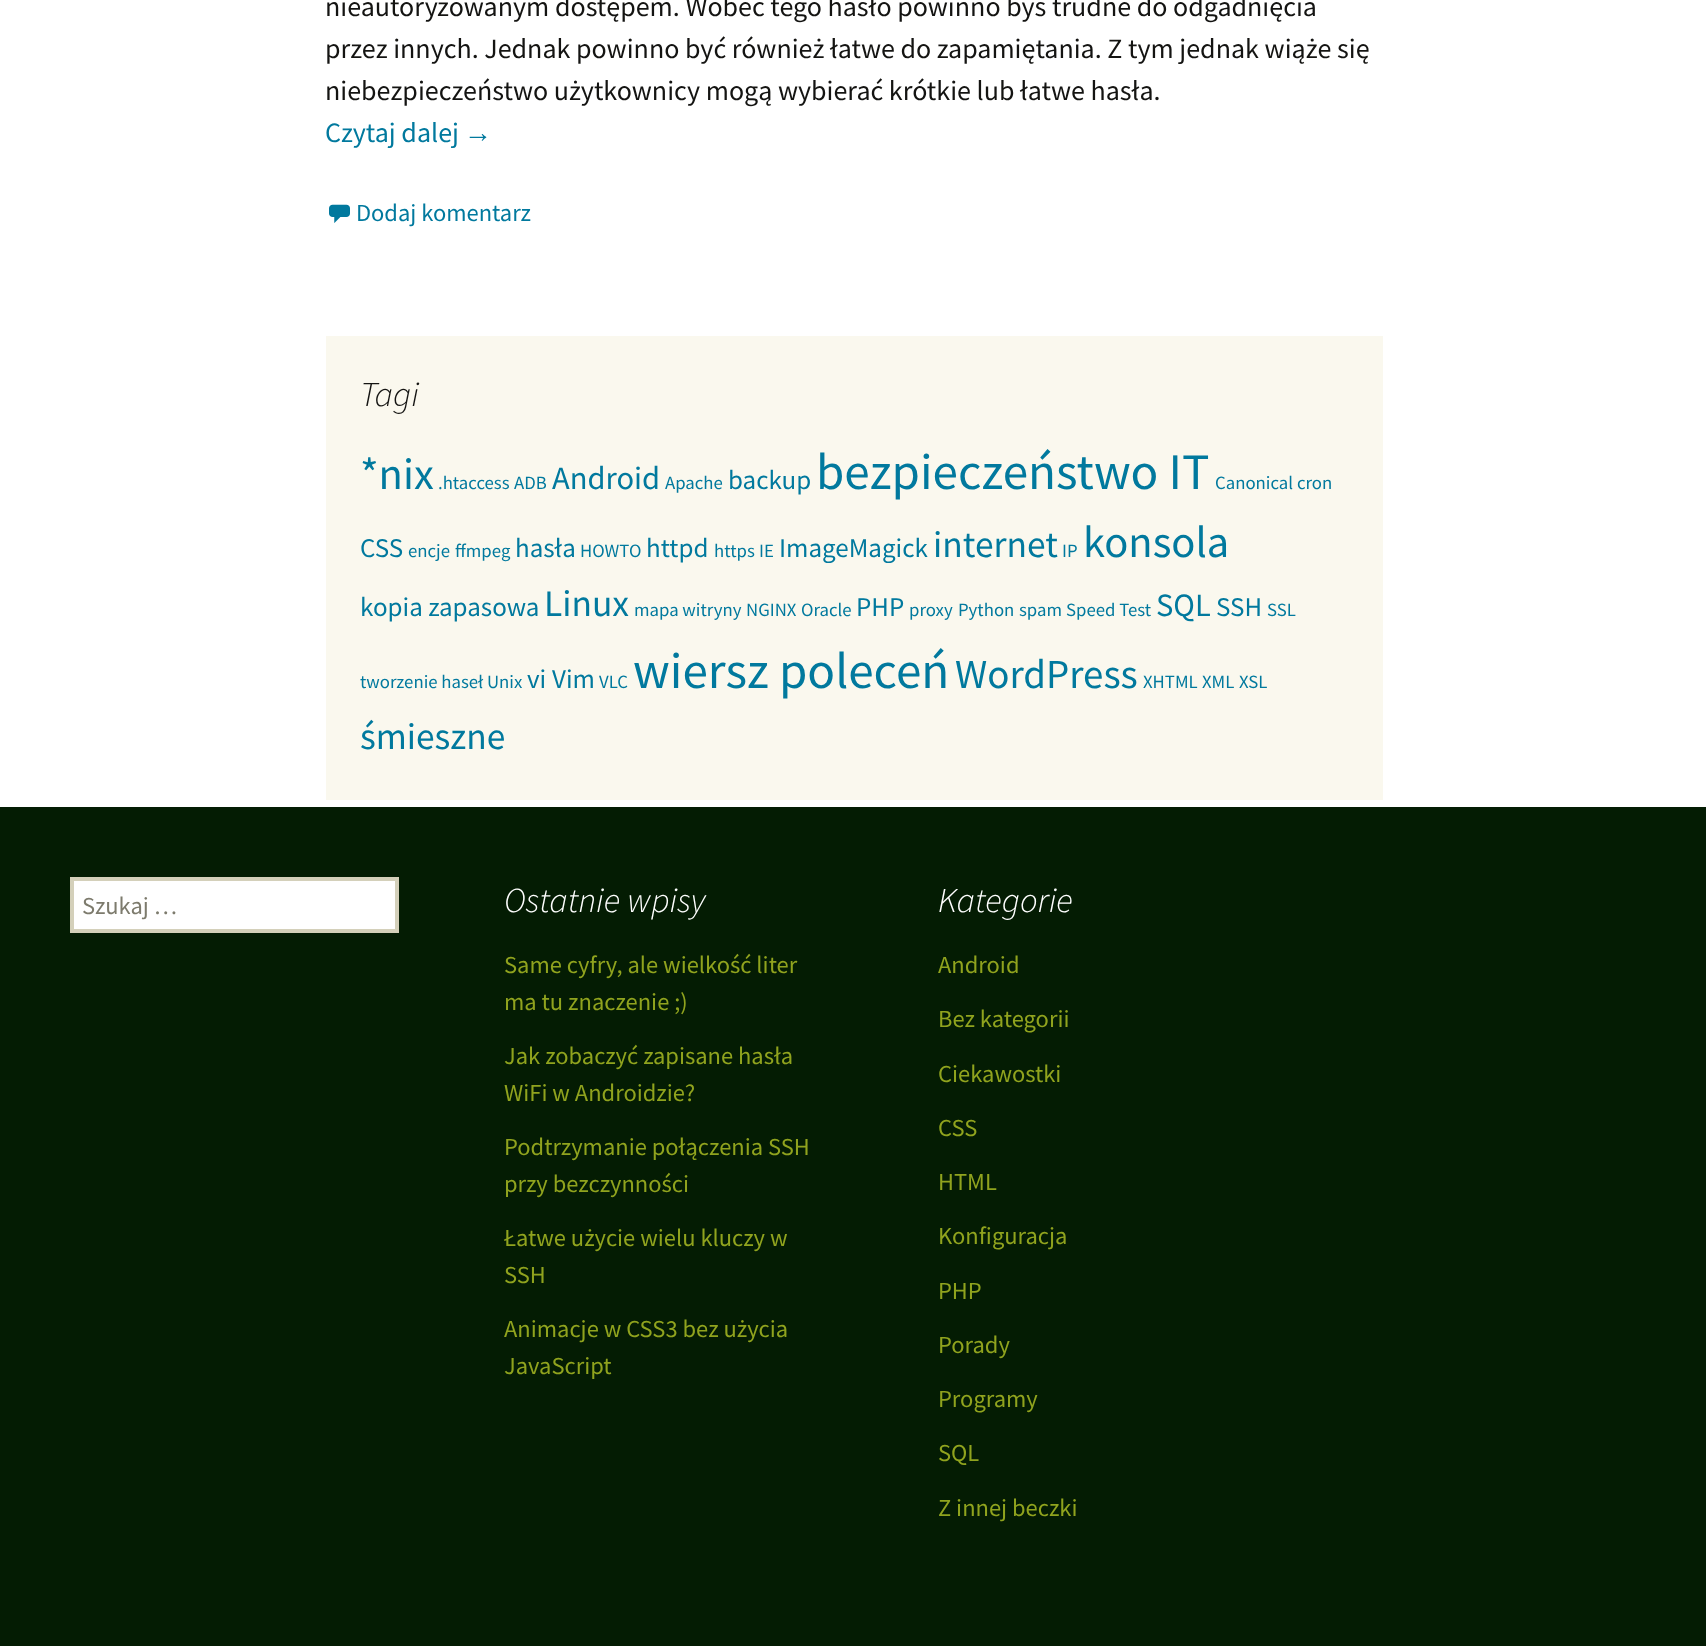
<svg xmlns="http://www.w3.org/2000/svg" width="1706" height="1646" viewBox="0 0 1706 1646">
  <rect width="100%" height="100%" fill="#ffffff"/>
  <text x="325" y="16" font-family="Source Sans Pro" font-size="28" fill="#141412">nieautoryzowanym dostępem. Wobec tego hasło powinno byś trudne do odgadnięcia</text>
  <text x="325" y="58" font-family="Source Sans Pro" font-size="28" fill="#141412">przez innych. Jednak powinno być również łatwe do zapamiętania. Z tym jednak wiąże się</text>
  <text x="325" y="100" font-family="Source Sans Pro" font-size="28" fill="#141412">niebezpieczeństwo użytkownicy mogą wybierać krótkie lub łatwe hasła.</text>
  <text x="325" y="142" font-family="Source Sans Pro" font-size="28" fill="#01799e">Czytaj dalej</text>
  <text x="464" y="142" font-family="Liberation Sans" font-size="28" fill="#01799e">→</text>
  <image x="329" y="204" width="21" height="19" href="img1.png"/>
  <text x="356" y="221" font-family="Source Sans Pro" font-size="24.5" fill="#01799e">Dodaj komentarz</text>
  <rect x="326" y="336" width="1057" height="464" fill="#faf8ee"/>
  <text x="360" y="406" font-family="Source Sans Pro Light" font-size="35" font-weight="300" font-style="italic" fill="#141412">Tagi</text>
  <text x="360" y="489" font-family="Source Sans Pro" font-size="44.5" fill="#01799e">*nix</text>
  <text x="438" y="489" font-family="Source Sans Pro" font-size="18.75" fill="#01799e">.htaccess</text>
  <text x="514" y="489" font-family="Source Sans Pro" font-size="18.75" fill="#01799e">ADB</text>
  <text x="552" y="489" font-family="Source Sans Pro" font-size="32.5" fill="#01799e">Android</text>
  <text x="665" y="489" font-family="Source Sans Pro" font-size="18.75" fill="#01799e">Apache</text>
  <text x="728" y="489" font-family="Source Sans Pro" font-size="27" fill="#01799e">backup</text>
  <text x="816" y="489" font-family="Source Sans Pro" font-size="51.25" fill="#01799e">bezpieczeństwo IT</text>
  <text x="1215" y="489" font-family="Source Sans Pro" font-size="18.75" fill="#01799e">Canonical</text>
  <text x="1297" y="489" font-family="Source Sans Pro" font-size="18.75" fill="#01799e">cron</text>
  <text x="360" y="557" font-family="Source Sans Pro" font-size="27" fill="#01799e">CSS</text>
  <text x="408" y="557" font-family="Source Sans Pro" font-size="18.75" fill="#01799e">encje</text>
  <text x="455" y="557" font-family="Source Sans Pro" font-size="18.75" fill="#01799e">ffmpeg</text>
  <text x="515" y="557" font-family="Source Sans Pro" font-size="27" fill="#01799e">hasła</text>
  <text x="580" y="557" font-family="Source Sans Pro" font-size="18.75" fill="#01799e">HOWTO</text>
  <text x="646" y="557" font-family="Source Sans Pro" font-size="27" fill="#01799e">httpd</text>
  <text x="714" y="557" font-family="Source Sans Pro" font-size="18.75" fill="#01799e">https</text>
  <text x="759" y="557" font-family="Source Sans Pro" font-size="18.75" fill="#01799e">IE</text>
  <text x="779" y="557" font-family="Source Sans Pro" font-size="27" fill="#01799e">ImageMagick</text>
  <text x="933" y="557" font-family="Source Sans Pro" font-size="37.5" fill="#01799e">internet</text>
  <text x="1062" y="557" font-family="Source Sans Pro" font-size="18.75" fill="#01799e">IP</text>
  <text x="1083" y="557" font-family="Source Sans Pro" font-size="44.5" fill="#01799e">konsola</text>
  <text x="360" y="616" font-family="Source Sans Pro" font-size="27" fill="#01799e">kopia zapasowa</text>
  <text x="544" y="616" font-family="Source Sans Pro" font-size="37.5" fill="#01799e">Linux</text>
  <text x="634" y="616" font-family="Source Sans Pro" font-size="18.75" fill="#01799e">mapa witryny</text>
  <text x="746" y="616" font-family="Source Sans Pro" font-size="18.75" fill="#01799e">NGINX</text>
  <text x="801" y="616" font-family="Source Sans Pro" font-size="18.75" fill="#01799e">Oracle</text>
  <text x="856" y="616" font-family="Source Sans Pro" font-size="27" fill="#01799e">PHP</text>
  <text x="909" y="616" font-family="Source Sans Pro" font-size="18.75" fill="#01799e">proxy</text>
  <text x="958" y="616" font-family="Source Sans Pro" font-size="18.75" fill="#01799e">Python</text>
  <text x="1019" y="616" font-family="Source Sans Pro" font-size="18.75" fill="#01799e">spam</text>
  <text x="1066" y="616" font-family="Source Sans Pro" font-size="18.75" fill="#01799e">Speed Test</text>
  <text x="1156" y="616" font-family="Source Sans Pro" font-size="32.5" fill="#01799e">SQL</text>
  <text x="1216" y="616" font-family="Source Sans Pro" font-size="27" fill="#01799e">SSH</text>
  <text x="1267" y="616" font-family="Source Sans Pro" font-size="18.75" fill="#01799e">SSL</text>
  <text x="360" y="688" font-family="Source Sans Pro" font-size="18.75" fill="#01799e">tworzenie haseł</text>
  <text x="487" y="688" font-family="Source Sans Pro" font-size="18.75" fill="#01799e">Unix</text>
  <text x="527" y="688" font-family="Source Sans Pro" font-size="27" fill="#01799e">vi</text>
  <text x="552" y="688" font-family="Source Sans Pro" font-size="27" fill="#01799e">Vim</text>
  <text x="599" y="688" font-family="Source Sans Pro" font-size="18.75" fill="#01799e">VLC</text>
  <text x="633" y="688" font-family="Source Sans Pro" font-size="51.25" fill="#01799e">wiersz poleceń</text>
  <text x="955" y="688" font-family="Source Sans Pro" font-size="41" fill="#01799e">WordPress</text>
  <text x="1143" y="688" font-family="Source Sans Pro" font-size="18.75" fill="#01799e">XHTML</text>
  <text x="1202" y="688" font-family="Source Sans Pro" font-size="18.75" fill="#01799e">XML</text>
  <text x="1239" y="688" font-family="Source Sans Pro" font-size="18.75" fill="#01799e">XSL</text>
  <text x="360" y="749" font-family="Source Sans Pro" font-size="37.5" fill="#01799e">śmieszne</text>
  <rect x="0" y="807" width="1706" height="839" fill="#041c03"/>
  <rect x="72" y="879" width="325" height="52" fill="#ffffff" stroke="#d4d0ba" stroke-width="4"/>
  <text x="82" y="914" font-family="Source Sans Pro" font-size="24.5" fill="#7d7b6d">Szukaj …</text>
  <text x="504" y="912" font-family="Source Sans Pro Light" font-size="35" font-weight="300" font-style="italic" fill="#ffffff">Ostatnie wpisy</text>
  <text x="504" y="973" font-family="Source Sans Pro" font-size="24.5" fill="#90a31e">Same cyfry, ale wielkość liter</text>
  <text x="504" y="1010" font-family="Source Sans Pro" font-size="24.5" fill="#90a31e">ma tu znaczenie ;)</text>
  <text x="504" y="1064" font-family="Source Sans Pro" font-size="24.5" fill="#90a31e">Jak zobaczyć zapisane hasła</text>
  <text x="504" y="1101" font-family="Source Sans Pro" font-size="24.5" fill="#90a31e">WiFi w Androidzie?</text>
  <text x="504" y="1155" font-family="Source Sans Pro" font-size="24.5" fill="#90a31e">Podtrzymanie połączenia SSH</text>
  <text x="504" y="1192" font-family="Source Sans Pro" font-size="24.5" fill="#90a31e">przy bezczynności</text>
  <text x="504" y="1246" font-family="Source Sans Pro" font-size="24.5" fill="#90a31e">Łatwe użycie wielu kluczy w</text>
  <text x="504" y="1283" font-family="Source Sans Pro" font-size="24.5" fill="#90a31e">SSH</text>
  <text x="504" y="1337" font-family="Source Sans Pro" font-size="24.5" fill="#90a31e">Animacje w CSS3 bez użycia</text>
  <text x="504" y="1374" font-family="Source Sans Pro" font-size="24.5" fill="#90a31e">JavaScript</text>
  <text x="938" y="912" font-family="Source Sans Pro Light" font-size="35" font-weight="300" font-style="italic" fill="#ffffff">Kategorie</text>
  <text x="938" y="973" font-family="Source Sans Pro" font-size="24.5" fill="#90a31e">Android</text>
  <text x="938" y="1027" font-family="Source Sans Pro" font-size="24.5" fill="#90a31e">Bez kategorii</text>
  <text x="938" y="1082" font-family="Source Sans Pro" font-size="24.5" fill="#90a31e">Ciekawostki</text>
  <text x="938" y="1136" font-family="Source Sans Pro" font-size="24.5" fill="#90a31e">CSS</text>
  <text x="938" y="1190" font-family="Source Sans Pro" font-size="24.5" fill="#90a31e">HTML</text>
  <text x="938" y="1244" font-family="Source Sans Pro" font-size="24.5" fill="#90a31e">Konfiguracja</text>
  <text x="938" y="1299" font-family="Source Sans Pro" font-size="24.5" fill="#90a31e">PHP</text>
  <text x="938" y="1353" font-family="Source Sans Pro" font-size="24.5" fill="#90a31e">Porady</text>
  <text x="938" y="1407" font-family="Source Sans Pro" font-size="24.5" fill="#90a31e">Programy</text>
  <text x="938" y="1461" font-family="Source Sans Pro" font-size="24.5" fill="#90a31e">SQL</text>
  <text x="938" y="1516" font-family="Source Sans Pro" font-size="24.5" fill="#90a31e">Z innej beczki</text>
</svg>
